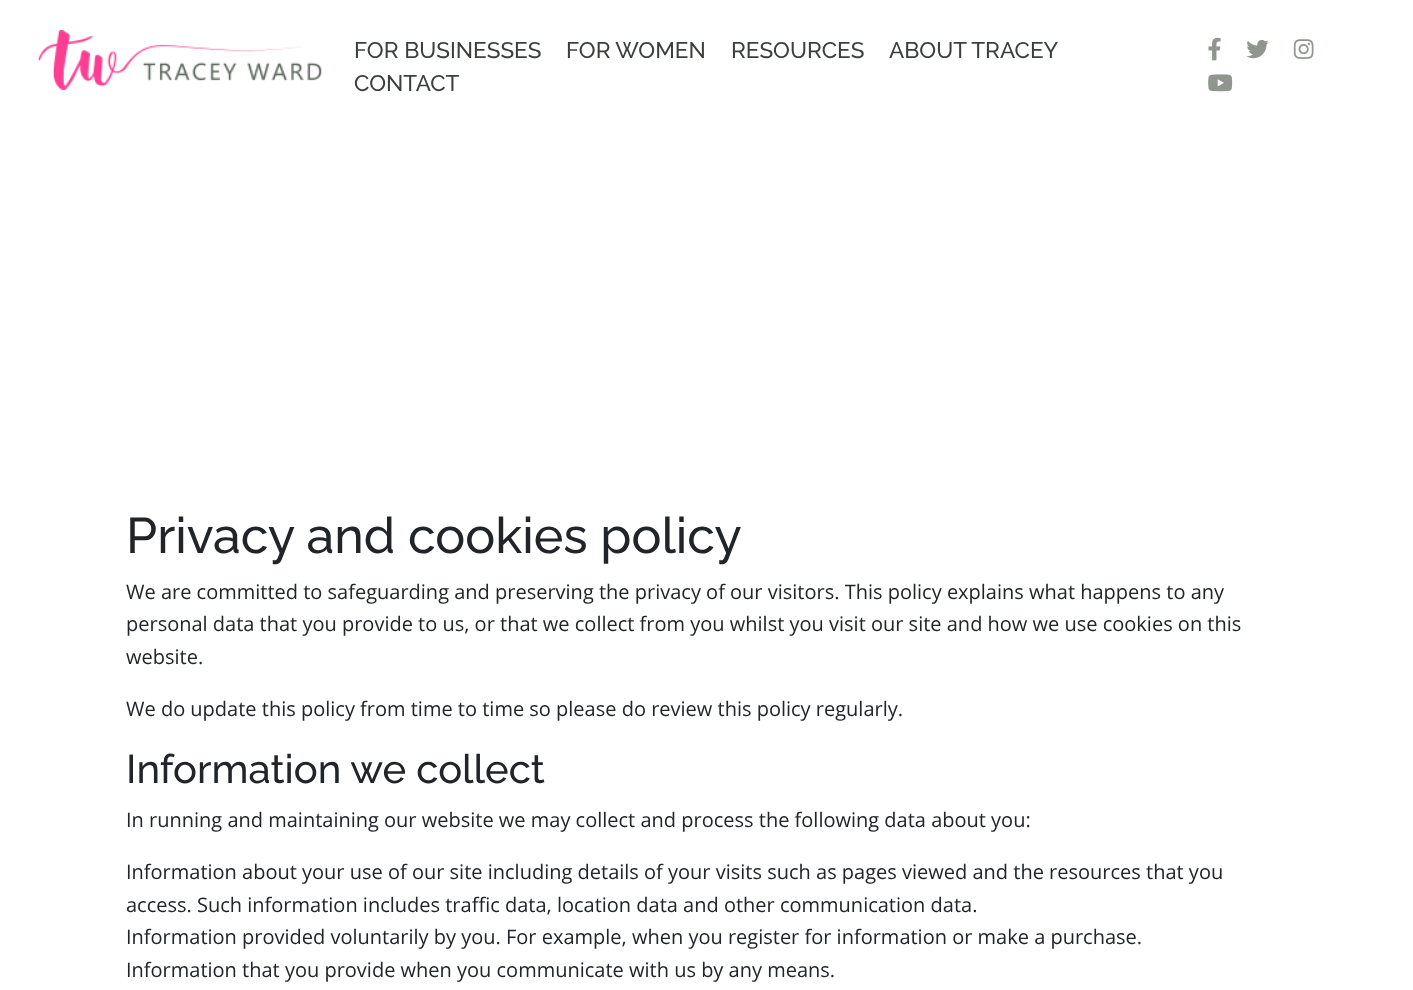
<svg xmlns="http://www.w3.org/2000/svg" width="1413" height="990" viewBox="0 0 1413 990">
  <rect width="100%" height="100%" fill="#ffffff"/>
  <image x="38" y="30" width="284" height="60" href="img1.png"/>
  <text x="354" y="58" font-family="Raleway" font-size="22.5" font-weight="500" fill="#3c403d">FOR BUSINESSES</text>
  <text x="566" y="58" font-family="Raleway" font-size="22.5" font-weight="500" fill="#3c403d">FOR WOMEN</text>
  <text x="731" y="58" font-family="Raleway" font-size="22.5" font-weight="500" fill="#3c403d">RESOURCES</text>
  <text x="889" y="58" font-family="Raleway" font-size="22.5" font-weight="500" fill="#3c403d">ABOUT TRACEY</text>
  <text x="354" y="91" font-family="Raleway" font-size="22.5" font-weight="500" fill="#3c403d">CONTACT</text>
  <image x="1208" y="37" width="13" height="24" href="img2.png"/>
  <image x="1246" y="39" width="23" height="20" href="img3.png"/>
  <image x="1293" y="39" width="21" height="20" href="img4.png"/>
  <image x="1208" y="74" width="25" height="18" href="img5.png"/>
  <text x="126" y="553" font-family="Raleway" font-size="50" font-weight="500" fill="#212529">Privacy and cookies policy</text>
  <text x="126" y="599" font-family="Open Sans" font-size="20" fill="#212529">We are committed to safeguarding and preserving the privacy of our visitors. This policy explains what happens to any</text>
  <text x="126" y="631" font-family="Open Sans" font-size="20" fill="#212529">personal data that you provide to us, or that we collect from you whilst you visit our site and how we use cookies on this</text>
  <text x="126" y="664" font-family="Open Sans" font-size="20" fill="#212529">website.</text>
  <text x="126" y="716" font-family="Open Sans" font-size="20" fill="#212529">We do update this policy from time to time so please do review this policy regularly.</text>
  <text x="126" y="783" font-family="Raleway" font-size="40" font-weight="500" fill="#212529">Information we collect</text>
  <text x="126" y="827" font-family="Open Sans" font-size="20" fill="#212529">In running and maintaining our website we may collect and process the following data about you:</text>
  <text x="126" y="879" font-family="Open Sans" font-size="20" fill="#212529">Information about your use of our site including details of your visits such as pages viewed and the resources that you</text>
  <text x="126" y="912" font-family="Open Sans" font-size="20" fill="#212529">access. Such information includes traffic data, location data and other communication data.</text>
  <text x="126" y="944" font-family="Open Sans" font-size="20" fill="#212529">Information provided voluntarily by you. For example, when you register for information or make a purchase.</text>
  <text x="126" y="977" font-family="Open Sans" font-size="20" fill="#212529">Information that you provide when you communicate with us by any means.</text>
</svg>
